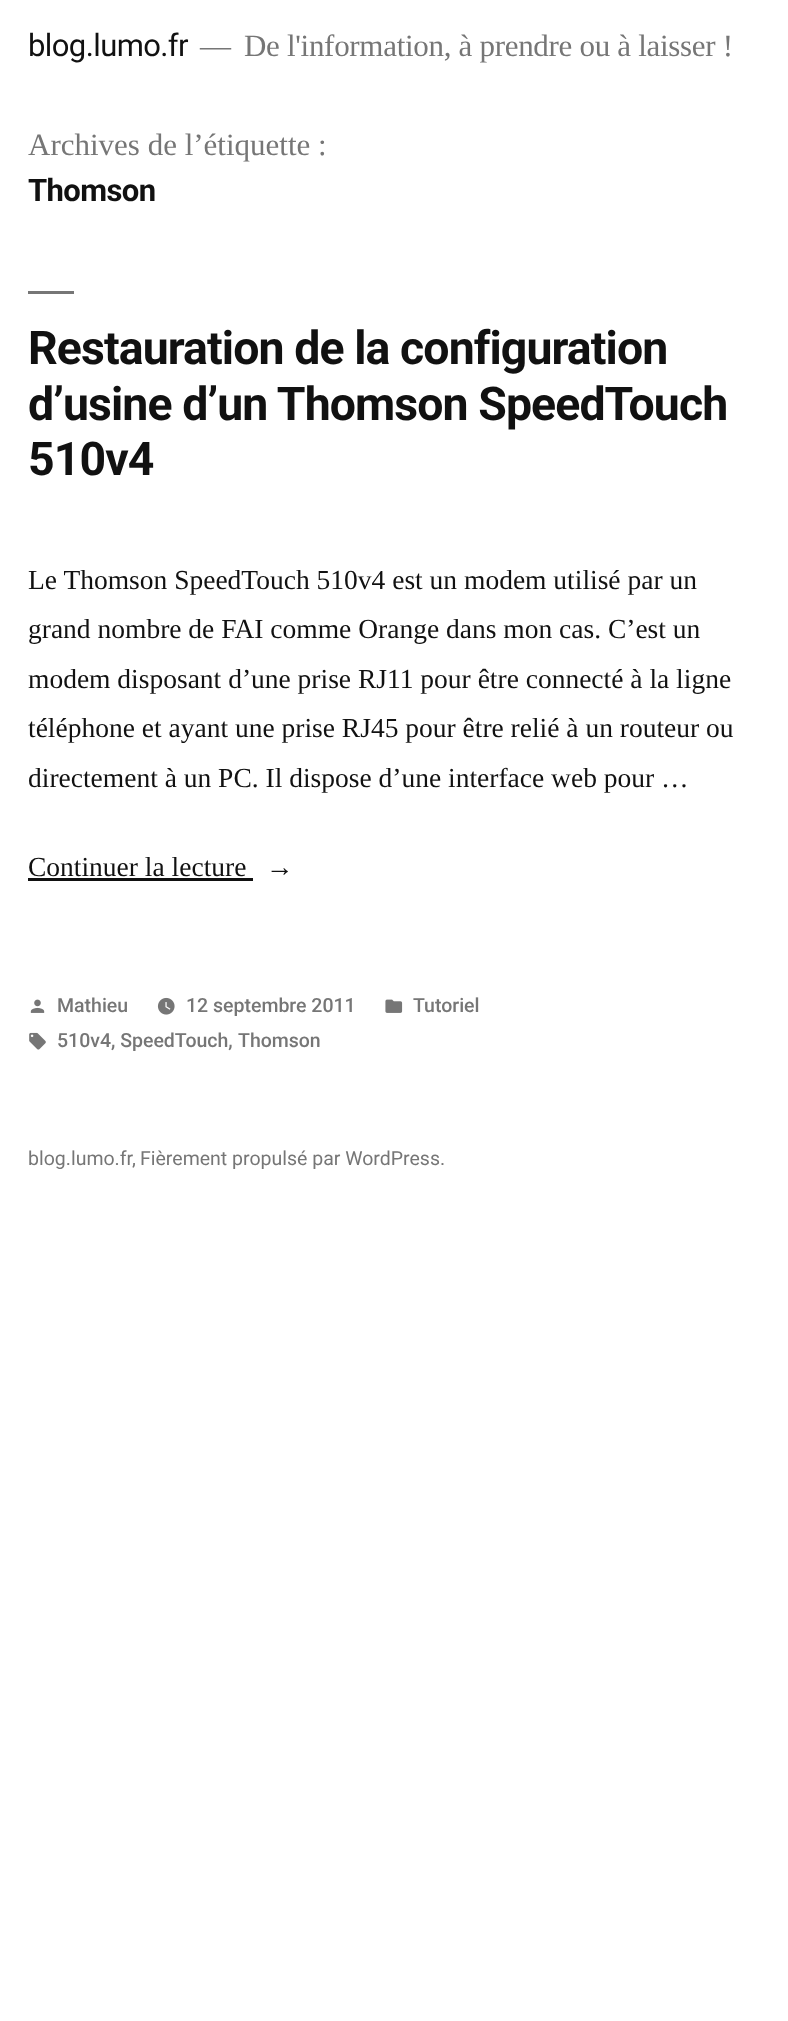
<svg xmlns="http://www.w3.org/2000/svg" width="788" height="2021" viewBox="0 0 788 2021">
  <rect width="100%" height="100%" fill="#ffffff"/>
  <text x="28" y="56" font-family="Roboto" font-size="31" letter-spacing="-0.6" fill="#111111">blog.lumo.fr</text>
  <text x="200" y="56" font-family="Liberation Serif" font-size="31" letter-spacing="-0.3" fill="#767676">—</text>
  <text x="244" y="56" font-family="Liberation Serif" font-size="31" letter-spacing="-0.3" fill="#767676">De l'information, à prendre ou à laisser !</text>
  <text x="28" y="155" font-family="Liberation Serif" font-size="31" fill="#767676">Archives de l’étiquette :</text>
  <text x="28" y="201" font-family="Roboto" font-size="31" font-weight="bold" letter-spacing="-0.6" fill="#111111">Thomson</text>
  <rect x="28" y="291" width="46" height="3" fill="#767676"/>
  <text x="28" y="364" font-family="Roboto" font-size="46.4" font-weight="bold" letter-spacing="-0.9" fill="#111111">Restauration de la configuration</text>
  <text x="28" y="420" font-family="Roboto" font-size="46.4" font-weight="bold" letter-spacing="-0.9" fill="#111111">d’usine d’un Thomson SpeedTouch</text>
  <text x="28" y="475" font-family="Roboto" font-size="46.4" font-weight="bold" letter-spacing="-0.9" fill="#111111">510v4</text>
  <text x="28" y="589" font-family="Liberation Serif" font-size="27.5" fill="#111111">Le Thomson SpeedTouch 510v4 est un modem utilisé par un</text>
  <text x="28" y="638" font-family="Liberation Serif" font-size="27.5" fill="#111111">grand nombre de FAI comme Orange dans mon cas. C’est un</text>
  <text x="28" y="688" font-family="Liberation Serif" font-size="27.5" fill="#111111">modem disposant d’une prise RJ11 pour être connecté à la ligne</text>
  <text x="28" y="737" font-family="Liberation Serif" font-size="27.5" fill="#111111">téléphone et ayant une prise RJ45 pour être relié à un routeur ou</text>
  <text x="28" y="787" font-family="Liberation Serif" font-size="27.5" fill="#111111">directement à un PC. Il dispose d’une interface web pour …</text>
  <text x="28" y="876" font-family="Liberation Serif" font-size="27.5" fill="#111111">Continuer la lecture</text>
  <rect x="28" y="878" width="225" height="3" fill="#111111"/>
  <text x="266" y="876" font-family="Liberation Serif" font-size="27.5" fill="#111111">→</text>
  <image x="30" y="999" width="15" height="14" href="img1.png"/>
  <text x="57" y="1012" font-family="Roboto" font-size="19.5" font-weight="500" fill="#767676">Mathieu</text>
  <image x="157" y="997" width="18" height="18" href="img2.png"/>
  <text x="186" y="1012" font-family="Roboto" font-size="19.5" font-weight="500" fill="#767676">12 septembre 2011</text>
  <image x="385" y="999" width="18" height="14" href="img3.png"/>
  <text x="413" y="1012" font-family="Roboto" font-size="19.5" font-weight="500" fill="#767676">Tutoriel</text>
  <image x="29" y="1032" width="17" height="18" href="img4.png"/>
  <text x="57" y="1047" font-family="Roboto" font-size="19.5" font-weight="500" fill="#767676">510v4, SpeedTouch,</text>
  <text x="238" y="1047" font-family="Roboto" font-size="19.5" font-weight="500" fill="#767676">Thomson</text>
  <text x="28" y="1165" font-family="Roboto" font-size="19.5" fill="#767676">blog.lumo.fr</text>
  <text x="140" y="1165" font-family="Roboto" font-size="19.5" fill="#767676">Fièrement propulsé par WordPress.</text>
  <text x="132" y="1165" font-family="Roboto" font-size="19.5" fill="#767676">,</text>
</svg>
